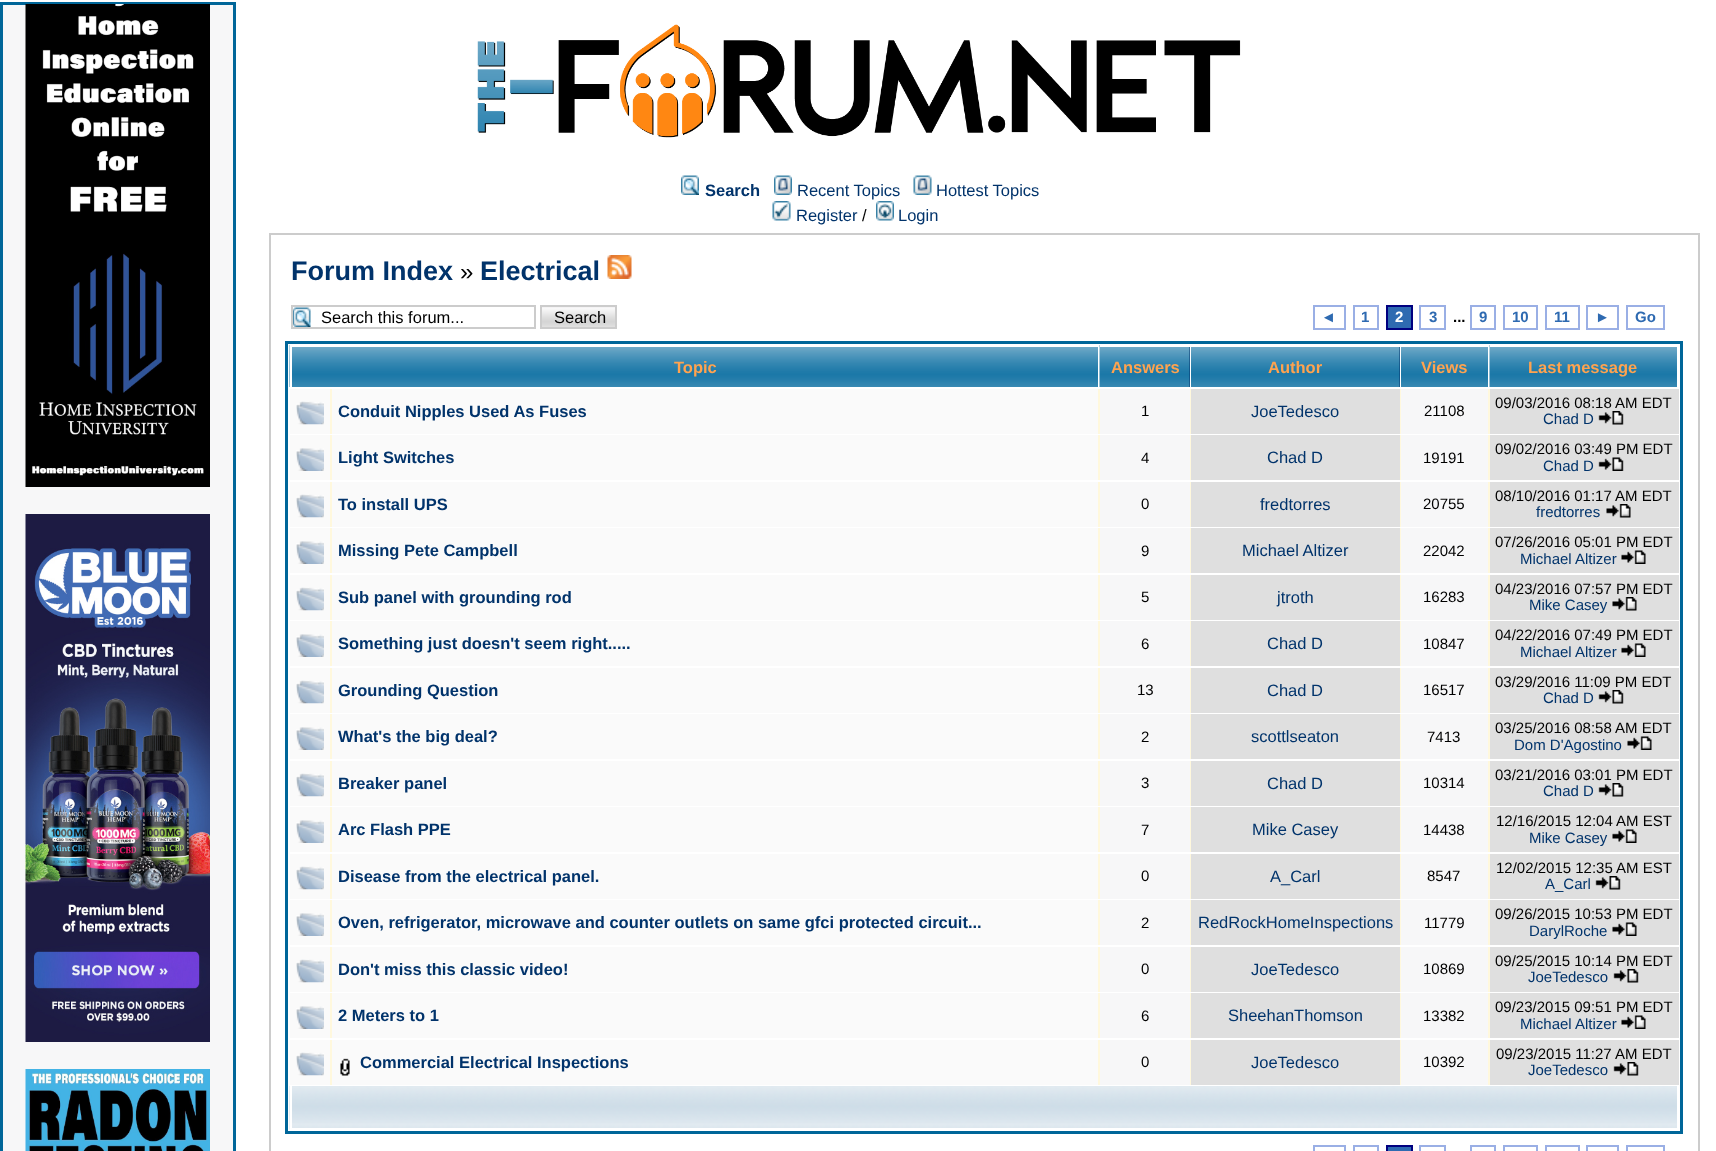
<svg xmlns="http://www.w3.org/2000/svg" width="1716" height="1151" viewBox="0 0 1716 1151">
  <rect width="100%" height="100%" fill="#ffffff"/>
  <image x="477" y="24" width="764" height="114" href="img1.png"/>
  <image x="681" y="175" width="18" height="20" href="img2.png"/>
  <text x="705" y="196" font-family="Liberation Sans" font-size="16.5" font-weight="bold" fill="#01336b">Search</text>
  <image x="774" y="175" width="18" height="20" href="img3.png"/>
  <text x="797" y="196" font-family="Liberation Sans" font-size="16.5" fill="#01336b">Recent Topics</text>
  <image x="913" y="175" width="19" height="20" href="img4.png"/>
  <text x="936" y="196" font-family="Liberation Sans" font-size="16.5" fill="#01336b">Hottest Topics</text>
  <image x="772" y="201" width="19" height="20" href="img5.png"/>
  <text x="796" y="221" font-family="Liberation Sans" font-size="16.5" fill="#01336b">Register</text>
  <text x="862" y="221" font-family="Liberation Sans" font-size="16.5" fill="#000000">/</text>
  <image x="876" y="201" width="18" height="20" href="img6.png"/>
  <text x="898" y="221" font-family="Liberation Sans" font-size="16.5" fill="#01336b">Login</text>
  <rect x="1.5" y="3.5" width="233" height="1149" fill="#f7f7f8" stroke="#006699" stroke-width="3"/>
  <image x="25" y="4" width="185" height="483" href="img7.png"/>
  <image x="25" y="514" width="185" height="528" href="img8.png"/>
  <image x="25" y="1069" width="185" height="82" href="img9.png"/>
  <rect x="270" y="234" width="1429" height="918" fill="none" stroke="#cccccc" stroke-width="2"/>
  <text x="291" y="280" font-family="Liberation Sans" font-size="27" font-weight="bold" fill="#01336b">Forum Index</text>
  <text x="460" y="280" font-family="Liberation Sans" font-size="24" fill="#000000">»</text>
  <text x="480" y="280" font-family="Liberation Sans" font-size="27" font-weight="bold" fill="#01336b">Electrical</text>
  <image x="607" y="255" width="25" height="24" href="img10.png"/>
  <image x="293" y="307" width="18" height="20" href="img11.png"/>
  <rect x="292" y="306" width="243" height="22" fill="none" stroke="#cccccc" stroke-width="2"/>
  <text x="321" y="323" font-family="Liberation Sans" font-size="16.5" fill="#000000">Search this forum...</text>
  <image x="542" y="307" width="73" height="20" href="img12.png"/>
  <rect x="541" y="306" width="75" height="22" fill="none" stroke="#cccccc" stroke-width="2"/>
  <text x="554" y="323" font-family="Liberation Sans" font-size="16.5" fill="#000000">Search</text>
  <rect x="1314" y="306" width="31" height="23" fill="none" stroke="#9aafe5" stroke-width="2"/>
  <text x="1321" y="322" font-family="Liberation Sans" font-size="15" font-weight="bold" fill="#2e6ab1">◄</text>
  <rect x="1354" y="306" width="24" height="23" fill="none" stroke="#9aafe5" stroke-width="2"/>
  <text x="1361" y="322" font-family="Liberation Sans" font-size="15" font-weight="bold" fill="#2e6ab1">1</text>
  <rect x="1387" y="306" width="25" height="23" fill="#2e6ab1" stroke="#000080" stroke-width="2"/>
  <text x="1395" y="322" font-family="Liberation Sans" font-size="15" font-weight="bold" fill="#ffffff">2</text>
  <rect x="1420" y="306" width="25" height="23" fill="none" stroke="#9aafe5" stroke-width="2"/>
  <text x="1429" y="322" font-family="Liberation Sans" font-size="15" font-weight="bold" fill="#2e6ab1">3</text>
  <text x="1453" y="322" font-family="Liberation Sans" font-size="15" font-weight="bold" fill="#000000">...</text>
  <rect x="1471" y="306" width="24" height="23" fill="none" stroke="#9aafe5" stroke-width="2"/>
  <text x="1479" y="322" font-family="Liberation Sans" font-size="15" font-weight="bold" fill="#2e6ab1">9</text>
  <rect x="1504" y="306" width="33" height="23" fill="none" stroke="#9aafe5" stroke-width="2"/>
  <text x="1512" y="322" font-family="Liberation Sans" font-size="15" font-weight="bold" fill="#2e6ab1">10</text>
  <rect x="1546" y="306" width="33" height="23" fill="none" stroke="#9aafe5" stroke-width="2"/>
  <text x="1554" y="322" font-family="Liberation Sans" font-size="15" font-weight="bold" fill="#2e6ab1">11</text>
  <rect x="1587" y="306" width="31" height="23" fill="none" stroke="#9aafe5" stroke-width="2"/>
  <text x="1595" y="322" font-family="Liberation Sans" font-size="15" font-weight="bold" fill="#2e6ab1">►</text>
  <rect x="1627" y="306" width="37" height="23" fill="none" stroke="#9aafe5" stroke-width="2"/>
  <text x="1635" y="322" font-family="Liberation Sans" font-size="15" font-weight="bold" fill="#2e6ab1">Go</text>
  <rect x="286.5" y="342.5" width="1395" height="790" fill="none" stroke="#006699" stroke-width="3"/>
  <image x="289" y="345" width="809" height="42" href="img13.png"/>
  <rect x="290" y="345" width="808" height="2" fill="#ffffff"/>
  <rect x="290" y="345" width="2" height="42" fill="#ffffff"/>
  <text x="674" y="373" font-family="Liberation Sans" font-size="16.5" font-weight="bold" fill="#ffa34f">Topic</text>
  <rect x="1189" y="347" width="1" height="40" fill="#01336b"/>
  <image x="1099" y="345" width="91" height="42" href="img14.png"/>
  <rect x="1100" y="345" width="90" height="2" fill="#ffffff"/>
  <text x="1111" y="373" font-family="Liberation Sans" font-size="16.5" font-weight="bold" fill="#ffa34f">Answers</text>
  <rect x="1399" y="347" width="1" height="40" fill="#01336b"/>
  <image x="1191" y="347" width="209" height="40" href="img15.png"/>
  <text x="1268" y="373" font-family="Liberation Sans" font-size="16.5" font-weight="bold" fill="#ffa34f">Author</text>
  <image x="1401" y="347" width="87" height="40" href="img16.png"/>
  <text x="1421" y="373" font-family="Liberation Sans" font-size="16.5" font-weight="bold" fill="#ffa34f">Views</text>
  <image x="1489" y="345" width="188" height="42" href="img17.png"/>
  <rect x="1490" y="345" width="189" height="2" fill="#ffffff"/>
  <text x="1528" y="373" font-family="Liberation Sans" font-size="16.5" font-weight="bold" fill="#ffa34f">Last message</text>
  <rect x="330" y="389" width="1160" height="45" fill="#fff8dd"/>
  <rect x="290" y="389" width="40" height="45" fill="#fafafa"/>
  <image x="296" y="401" width="28" height="24" href="img18.png"/>
  <rect x="332" y="389" width="766" height="45" fill="#fafafa"/>
  <text x="338" y="417" font-family="Liberation Sans" font-size="16.5" font-weight="bold" fill="#01336b">Conduit Nipples Used As Fuses</text>
  <rect x="1100" y="389" width="90" height="45" fill="#f7f7f8"/>
  <text x="1141" y="416" font-family="Liberation Sans" font-size="15" fill="#000000">1</text>
  <rect x="1191" y="389" width="209" height="45" fill="#dfdfdf"/>
  <text x="1251" y="417" font-family="Liberation Sans" font-size="16.5" fill="#01336b">JoeTedesco</text>
  <rect x="1401" y="389" width="87" height="45" fill="#f7f7f8"/>
  <text x="1424" y="416" font-family="Liberation Sans" font-size="15" fill="#000000">21108</text>
  <rect x="1490" y="389" width="189" height="45" fill="#dfdfdf"/>
  <text x="1495" y="408" font-family="Liberation Sans" font-size="15" fill="#000000">09/03/2016 08:18 AM EDT</text>
  <text x="1543" y="424" font-family="Liberation Sans" font-size="15" fill="#01336b">Chad D</text>
  <image x="1598" y="411" width="26" height="14" href="img19.png"/>
  <rect x="330" y="435" width="1160" height="45" fill="#fff8dd"/>
  <rect x="290" y="435" width="40" height="45" fill="#fafafa"/>
  <image x="296" y="448" width="28" height="23" href="img20.png"/>
  <rect x="332" y="435" width="766" height="45" fill="#fafafa"/>
  <text x="338" y="463" font-family="Liberation Sans" font-size="16.5" font-weight="bold" fill="#01336b">Light Switches</text>
  <rect x="1100" y="435" width="90" height="45" fill="#f7f7f8"/>
  <text x="1141" y="463" font-family="Liberation Sans" font-size="15" fill="#000000">4</text>
  <rect x="1191" y="435" width="209" height="45" fill="#dfdfdf"/>
  <text x="1267" y="463" font-family="Liberation Sans" font-size="16.5" fill="#01336b">Chad D</text>
  <rect x="1401" y="435" width="87" height="45" fill="#f7f7f8"/>
  <text x="1423" y="463" font-family="Liberation Sans" font-size="15" fill="#000000">19191</text>
  <rect x="1490" y="435" width="189" height="45" fill="#dfdfdf"/>
  <text x="1495" y="454" font-family="Liberation Sans" font-size="15" fill="#000000">09/02/2016 03:49 PM EDT</text>
  <text x="1543" y="471" font-family="Liberation Sans" font-size="15" fill="#01336b">Chad D</text>
  <image x="1598" y="457" width="26" height="14" href="img21.png"/>
  <rect x="330" y="482" width="1160" height="45" fill="#fff8dd"/>
  <rect x="290" y="482" width="40" height="45" fill="#fafafa"/>
  <image x="296" y="494" width="28" height="24" href="img18.png"/>
  <rect x="332" y="482" width="766" height="45" fill="#fafafa"/>
  <text x="338" y="510" font-family="Liberation Sans" font-size="16.5" font-weight="bold" fill="#01336b">To install UPS</text>
  <rect x="1100" y="482" width="90" height="45" fill="#f7f7f8"/>
  <text x="1141" y="509" font-family="Liberation Sans" font-size="15" fill="#000000">0</text>
  <rect x="1191" y="482" width="209" height="45" fill="#dfdfdf"/>
  <text x="1260" y="510" font-family="Liberation Sans" font-size="16.5" fill="#01336b">fredtorres</text>
  <rect x="1401" y="482" width="87" height="45" fill="#f7f7f8"/>
  <text x="1423" y="509" font-family="Liberation Sans" font-size="15" fill="#000000">20755</text>
  <rect x="1490" y="482" width="189" height="45" fill="#dfdfdf"/>
  <text x="1495" y="501" font-family="Liberation Sans" font-size="15" fill="#000000">08/10/2016 01:17 AM EDT</text>
  <text x="1536" y="517" font-family="Liberation Sans" font-size="15" fill="#01336b">fredtorres</text>
  <image x="1606" y="504" width="25" height="14" href="img22.png"/>
  <rect x="330" y="528" width="1160" height="45" fill="#fff8dd"/>
  <rect x="290" y="528" width="40" height="45" fill="#fafafa"/>
  <image x="296" y="541" width="28" height="23" href="img20.png"/>
  <rect x="332" y="528" width="766" height="45" fill="#fafafa"/>
  <text x="338" y="556" font-family="Liberation Sans" font-size="16.5" font-weight="bold" fill="#01336b">Missing Pete Campbell</text>
  <rect x="1100" y="528" width="90" height="45" fill="#f7f7f8"/>
  <text x="1141" y="556" font-family="Liberation Sans" font-size="15" fill="#000000">9</text>
  <rect x="1191" y="528" width="209" height="45" fill="#dfdfdf"/>
  <text x="1242" y="556" font-family="Liberation Sans" font-size="16.5" fill="#01336b">Michael Altizer</text>
  <rect x="1401" y="528" width="87" height="45" fill="#f7f7f8"/>
  <text x="1423" y="556" font-family="Liberation Sans" font-size="15" fill="#000000">22042</text>
  <rect x="1490" y="528" width="189" height="45" fill="#dfdfdf"/>
  <text x="1495" y="547" font-family="Liberation Sans" font-size="15" fill="#000000">07/26/2016 05:01 PM EDT</text>
  <text x="1520" y="564" font-family="Liberation Sans" font-size="15" fill="#01336b">Michael Altizer</text>
  <image x="1621" y="550" width="25" height="14" href="img23.png"/>
  <rect x="330" y="575" width="1160" height="45" fill="#fff8dd"/>
  <rect x="290" y="575" width="40" height="45" fill="#fafafa"/>
  <image x="296" y="587" width="28" height="24" href="img18.png"/>
  <rect x="332" y="575" width="766" height="45" fill="#fafafa"/>
  <text x="338" y="603" font-family="Liberation Sans" font-size="16.5" font-weight="bold" fill="#01336b">Sub panel with grounding rod</text>
  <rect x="1100" y="575" width="90" height="45" fill="#f7f7f8"/>
  <text x="1141" y="602" font-family="Liberation Sans" font-size="15" fill="#000000">5</text>
  <rect x="1191" y="575" width="209" height="45" fill="#dfdfdf"/>
  <text x="1277" y="603" font-family="Liberation Sans" font-size="16.5" fill="#01336b">jtroth</text>
  <rect x="1401" y="575" width="87" height="45" fill="#f7f7f8"/>
  <text x="1423" y="602" font-family="Liberation Sans" font-size="15" fill="#000000">16283</text>
  <rect x="1490" y="575" width="189" height="45" fill="#dfdfdf"/>
  <text x="1495" y="594" font-family="Liberation Sans" font-size="15" fill="#000000">04/23/2016 07:57 PM EDT</text>
  <text x="1529" y="610" font-family="Liberation Sans" font-size="15" fill="#01336b">Mike Casey</text>
  <image x="1612" y="597" width="25" height="14" href="img22.png"/>
  <rect x="330" y="621" width="1160" height="45" fill="#fff8dd"/>
  <rect x="290" y="621" width="40" height="45" fill="#fafafa"/>
  <image x="296" y="634" width="28" height="23" href="img20.png"/>
  <rect x="332" y="621" width="766" height="45" fill="#fafafa"/>
  <text x="338" y="649" font-family="Liberation Sans" font-size="16.5" font-weight="bold" fill="#01336b">Something just doesn't seem right.....</text>
  <rect x="1100" y="621" width="90" height="45" fill="#f7f7f8"/>
  <text x="1141" y="649" font-family="Liberation Sans" font-size="15" fill="#000000">6</text>
  <rect x="1191" y="621" width="209" height="45" fill="#dfdfdf"/>
  <text x="1267" y="649" font-family="Liberation Sans" font-size="16.5" fill="#01336b">Chad D</text>
  <rect x="1401" y="621" width="87" height="45" fill="#f7f7f8"/>
  <text x="1423" y="649" font-family="Liberation Sans" font-size="15" fill="#000000">10847</text>
  <rect x="1490" y="621" width="189" height="45" fill="#dfdfdf"/>
  <text x="1495" y="640" font-family="Liberation Sans" font-size="15" fill="#000000">04/22/2016 07:49 PM EDT</text>
  <text x="1520" y="657" font-family="Liberation Sans" font-size="15" fill="#01336b">Michael Altizer</text>
  <image x="1621" y="643" width="25" height="14" href="img23.png"/>
  <rect x="330" y="668" width="1160" height="45" fill="#fff8dd"/>
  <rect x="290" y="668" width="40" height="45" fill="#fafafa"/>
  <image x="296" y="680" width="28" height="24" href="img18.png"/>
  <rect x="332" y="668" width="766" height="45" fill="#fafafa"/>
  <text x="338" y="696" font-family="Liberation Sans" font-size="16.5" font-weight="bold" fill="#01336b">Grounding Question</text>
  <rect x="1100" y="668" width="90" height="45" fill="#f7f7f8"/>
  <text x="1137" y="695" font-family="Liberation Sans" font-size="15" fill="#000000">13</text>
  <rect x="1191" y="668" width="209" height="45" fill="#dfdfdf"/>
  <text x="1267" y="696" font-family="Liberation Sans" font-size="16.5" fill="#01336b">Chad D</text>
  <rect x="1401" y="668" width="87" height="45" fill="#f7f7f8"/>
  <text x="1423" y="695" font-family="Liberation Sans" font-size="15" fill="#000000">16517</text>
  <rect x="1490" y="668" width="189" height="45" fill="#dfdfdf"/>
  <text x="1495" y="687" font-family="Liberation Sans" font-size="15" fill="#000000">03/29/2016 11:09 PM EDT</text>
  <text x="1543" y="703" font-family="Liberation Sans" font-size="15" fill="#01336b">Chad D</text>
  <image x="1598" y="690" width="26" height="14" href="img19.png"/>
  <rect x="330" y="714" width="1160" height="45" fill="#fff8dd"/>
  <rect x="290" y="714" width="40" height="45" fill="#fafafa"/>
  <image x="296" y="727" width="28" height="23" href="img20.png"/>
  <rect x="332" y="714" width="766" height="45" fill="#fafafa"/>
  <text x="338" y="742" font-family="Liberation Sans" font-size="16.5" font-weight="bold" fill="#01336b">What's the big deal?</text>
  <rect x="1100" y="714" width="90" height="45" fill="#f7f7f8"/>
  <text x="1141" y="742" font-family="Liberation Sans" font-size="15" fill="#000000">2</text>
  <rect x="1191" y="714" width="209" height="45" fill="#dfdfdf"/>
  <text x="1251" y="742" font-family="Liberation Sans" font-size="16.5" fill="#01336b">scottlseaton</text>
  <rect x="1401" y="714" width="87" height="45" fill="#f7f7f8"/>
  <text x="1427" y="742" font-family="Liberation Sans" font-size="15" fill="#000000">7413</text>
  <rect x="1490" y="714" width="189" height="45" fill="#dfdfdf"/>
  <text x="1495" y="733" font-family="Liberation Sans" font-size="15" fill="#000000">03/25/2016 08:58 AM EDT</text>
  <text x="1514" y="750" font-family="Liberation Sans" font-size="15" fill="#01336b">Dom D'Agostino</text>
  <image x="1627" y="736" width="25" height="14" href="img23.png"/>
  <rect x="330" y="761" width="1160" height="45" fill="#fff8dd"/>
  <rect x="290" y="761" width="40" height="45" fill="#fafafa"/>
  <image x="296" y="773" width="28" height="24" href="img18.png"/>
  <rect x="332" y="761" width="766" height="45" fill="#fafafa"/>
  <text x="338" y="789" font-family="Liberation Sans" font-size="16.5" font-weight="bold" fill="#01336b">Breaker panel</text>
  <rect x="1100" y="761" width="90" height="45" fill="#f7f7f8"/>
  <text x="1141" y="788" font-family="Liberation Sans" font-size="15" fill="#000000">3</text>
  <rect x="1191" y="761" width="209" height="45" fill="#dfdfdf"/>
  <text x="1267" y="789" font-family="Liberation Sans" font-size="16.5" fill="#01336b">Chad D</text>
  <rect x="1401" y="761" width="87" height="45" fill="#f7f7f8"/>
  <text x="1423" y="788" font-family="Liberation Sans" font-size="15" fill="#000000">10314</text>
  <rect x="1490" y="761" width="189" height="45" fill="#dfdfdf"/>
  <text x="1495" y="780" font-family="Liberation Sans" font-size="15" fill="#000000">03/21/2016 03:01 PM EDT</text>
  <text x="1543" y="796" font-family="Liberation Sans" font-size="15" fill="#01336b">Chad D</text>
  <image x="1598" y="783" width="26" height="14" href="img19.png"/>
  <rect x="330" y="807" width="1160" height="45" fill="#fff8dd"/>
  <rect x="290" y="807" width="40" height="45" fill="#fafafa"/>
  <image x="296" y="820" width="28" height="23" href="img20.png"/>
  <rect x="332" y="807" width="766" height="45" fill="#fafafa"/>
  <text x="338" y="835" font-family="Liberation Sans" font-size="16.5" font-weight="bold" fill="#01336b">Arc Flash PPE</text>
  <rect x="1100" y="807" width="90" height="45" fill="#f7f7f8"/>
  <text x="1141" y="835" font-family="Liberation Sans" font-size="15" fill="#000000">7</text>
  <rect x="1191" y="807" width="209" height="45" fill="#dfdfdf"/>
  <text x="1252" y="835" font-family="Liberation Sans" font-size="16.5" fill="#01336b">Mike Casey</text>
  <rect x="1401" y="807" width="87" height="45" fill="#f7f7f8"/>
  <text x="1423" y="835" font-family="Liberation Sans" font-size="15" fill="#000000">14438</text>
  <rect x="1490" y="807" width="189" height="45" fill="#dfdfdf"/>
  <text x="1496" y="826" font-family="Liberation Sans" font-size="15" fill="#000000">12/16/2015 12:04 AM EST</text>
  <text x="1529" y="843" font-family="Liberation Sans" font-size="15" fill="#01336b">Mike Casey</text>
  <image x="1612" y="829" width="25" height="14" href="img23.png"/>
  <rect x="330" y="854" width="1160" height="45" fill="#fff8dd"/>
  <rect x="290" y="854" width="40" height="45" fill="#fafafa"/>
  <image x="296" y="866" width="28" height="24" href="img18.png"/>
  <rect x="332" y="854" width="766" height="45" fill="#fafafa"/>
  <text x="338" y="882" font-family="Liberation Sans" font-size="16.5" font-weight="bold" fill="#01336b">Disease from the electrical panel.</text>
  <rect x="1100" y="854" width="90" height="45" fill="#f7f7f8"/>
  <text x="1141" y="881" font-family="Liberation Sans" font-size="15" fill="#000000">0</text>
  <rect x="1191" y="854" width="209" height="45" fill="#dfdfdf"/>
  <text x="1270" y="882" font-family="Liberation Sans" font-size="16.5" fill="#01336b">A_Carl</text>
  <rect x="1401" y="854" width="87" height="45" fill="#f7f7f8"/>
  <text x="1427" y="881" font-family="Liberation Sans" font-size="15" fill="#000000">8547</text>
  <rect x="1490" y="854" width="189" height="45" fill="#dfdfdf"/>
  <text x="1496" y="873" font-family="Liberation Sans" font-size="15" fill="#000000">12/02/2015 12:35 AM EST</text>
  <text x="1545" y="889" font-family="Liberation Sans" font-size="15" fill="#01336b">A_Carl</text>
  <image x="1595" y="876" width="26" height="14" href="img19.png"/>
  <rect x="330" y="900" width="1160" height="45" fill="#fff8dd"/>
  <rect x="290" y="900" width="40" height="45" fill="#fafafa"/>
  <image x="296" y="913" width="28" height="23" href="img20.png"/>
  <rect x="332" y="900" width="766" height="45" fill="#fafafa"/>
  <text x="338" y="928" font-family="Liberation Sans" font-size="16.5" font-weight="bold" fill="#01336b">Oven, refrigerator, microwave and counter outlets on same gfci protected circuit...</text>
  <rect x="1100" y="900" width="90" height="45" fill="#f7f7f8"/>
  <text x="1141" y="928" font-family="Liberation Sans" font-size="15" fill="#000000">2</text>
  <rect x="1191" y="900" width="209" height="45" fill="#dfdfdf"/>
  <text x="1198" y="928" font-family="Liberation Sans" font-size="16.5" fill="#01336b">RedRockHomeInspections</text>
  <rect x="1401" y="900" width="87" height="45" fill="#f7f7f8"/>
  <text x="1424" y="928" font-family="Liberation Sans" font-size="15" fill="#000000">11779</text>
  <rect x="1490" y="900" width="189" height="45" fill="#dfdfdf"/>
  <text x="1495" y="919" font-family="Liberation Sans" font-size="15" fill="#000000">09/26/2015 10:53 PM EDT</text>
  <text x="1529" y="936" font-family="Liberation Sans" font-size="15" fill="#01336b">DarylRoche</text>
  <image x="1612" y="922" width="25" height="14" href="img23.png"/>
  <rect x="330" y="947" width="1160" height="45" fill="#fff8dd"/>
  <rect x="290" y="947" width="40" height="45" fill="#fafafa"/>
  <image x="296" y="959" width="28" height="24" href="img18.png"/>
  <rect x="332" y="947" width="766" height="45" fill="#fafafa"/>
  <text x="338" y="975" font-family="Liberation Sans" font-size="16.5" font-weight="bold" fill="#01336b">Don't miss this classic video!</text>
  <rect x="1100" y="947" width="90" height="45" fill="#f7f7f8"/>
  <text x="1141" y="974" font-family="Liberation Sans" font-size="15" fill="#000000">0</text>
  <rect x="1191" y="947" width="209" height="45" fill="#dfdfdf"/>
  <text x="1251" y="975" font-family="Liberation Sans" font-size="16.5" fill="#01336b">JoeTedesco</text>
  <rect x="1401" y="947" width="87" height="45" fill="#f7f7f8"/>
  <text x="1423" y="974" font-family="Liberation Sans" font-size="15" fill="#000000">10869</text>
  <rect x="1490" y="947" width="189" height="45" fill="#dfdfdf"/>
  <text x="1495" y="966" font-family="Liberation Sans" font-size="15" fill="#000000">09/25/2015 10:14 PM EDT</text>
  <text x="1528" y="982" font-family="Liberation Sans" font-size="15" fill="#01336b">JoeTedesco</text>
  <image x="1613" y="969" width="26" height="14" href="img19.png"/>
  <rect x="330" y="993" width="1160" height="45" fill="#fff8dd"/>
  <rect x="290" y="993" width="40" height="45" fill="#fafafa"/>
  <image x="296" y="1006" width="28" height="23" href="img20.png"/>
  <rect x="332" y="993" width="766" height="45" fill="#fafafa"/>
  <text x="338" y="1021" font-family="Liberation Sans" font-size="16.5" font-weight="bold" fill="#01336b">2 Meters to 1</text>
  <rect x="1100" y="993" width="90" height="45" fill="#f7f7f8"/>
  <text x="1141" y="1021" font-family="Liberation Sans" font-size="15" fill="#000000">6</text>
  <rect x="1191" y="993" width="209" height="45" fill="#dfdfdf"/>
  <text x="1228" y="1021" font-family="Liberation Sans" font-size="16.5" fill="#01336b">SheehanThomson</text>
  <rect x="1401" y="993" width="87" height="45" fill="#f7f7f8"/>
  <text x="1423" y="1021" font-family="Liberation Sans" font-size="15" fill="#000000">13382</text>
  <rect x="1490" y="993" width="189" height="45" fill="#dfdfdf"/>
  <text x="1495" y="1012" font-family="Liberation Sans" font-size="15" fill="#000000">09/23/2015 09:51 PM EDT</text>
  <text x="1520" y="1029" font-family="Liberation Sans" font-size="15" fill="#01336b">Michael Altizer</text>
  <image x="1621" y="1015" width="25" height="14" href="img23.png"/>
  <rect x="330" y="1040" width="1160" height="45" fill="#fff8dd"/>
  <rect x="290" y="1040" width="40" height="45" fill="#fafafa"/>
  <image x="296" y="1052" width="28" height="24" href="img18.png"/>
  <rect x="332" y="1040" width="766" height="45" fill="#fafafa"/>
  <image x="340" y="1058" width="10" height="18" href="img24.png"/>
  <text x="360" y="1068" font-family="Liberation Sans" font-size="16.5" font-weight="bold" fill="#01336b">Commercial Electrical Inspections</text>
  <rect x="1100" y="1040" width="90" height="45" fill="#f7f7f8"/>
  <text x="1141" y="1067" font-family="Liberation Sans" font-size="15" fill="#000000">0</text>
  <rect x="1191" y="1040" width="209" height="45" fill="#dfdfdf"/>
  <text x="1251" y="1068" font-family="Liberation Sans" font-size="16.5" fill="#01336b">JoeTedesco</text>
  <rect x="1401" y="1040" width="87" height="45" fill="#f7f7f8"/>
  <text x="1423" y="1067" font-family="Liberation Sans" font-size="15" fill="#000000">10392</text>
  <rect x="1490" y="1040" width="189" height="45" fill="#dfdfdf"/>
  <text x="1496" y="1059" font-family="Liberation Sans" font-size="15" fill="#000000">09/23/2015 11:27 AM EDT</text>
  <text x="1528" y="1075" font-family="Liberation Sans" font-size="15" fill="#01336b">JoeTedesco</text>
  <image x="1613" y="1062" width="26" height="14" href="img19.png"/>
  <image x="289" y="1086" width="1388" height="44" href="img25.png"/>
  <rect x="290" y="1128" width="1389" height="2" fill="#ffffff"/>
  <rect x="290" y="1086" width="2" height="44" fill="#ffffff"/>
  <rect x="1314" y="1146" width="31" height="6" fill="none" stroke="#9aafe5" stroke-width="2"/>
  <rect x="1354" y="1146" width="24" height="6" fill="none" stroke="#9aafe5" stroke-width="2"/>
  <rect x="1387" y="1146" width="25" height="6" fill="#2e6ab1" stroke="#000080" stroke-width="2"/>
  <rect x="1420" y="1146" width="25" height="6" fill="none" stroke="#9aafe5" stroke-width="2"/>
  <rect x="1471" y="1146" width="24" height="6" fill="none" stroke="#9aafe5" stroke-width="2"/>
  <rect x="1504" y="1146" width="33" height="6" fill="none" stroke="#9aafe5" stroke-width="2"/>
  <rect x="1546" y="1146" width="33" height="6" fill="none" stroke="#9aafe5" stroke-width="2"/>
  <rect x="1587" y="1146" width="31" height="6" fill="none" stroke="#9aafe5" stroke-width="2"/>
  <rect x="1627" y="1146" width="37" height="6" fill="none" stroke="#9aafe5" stroke-width="2"/>
</svg>
